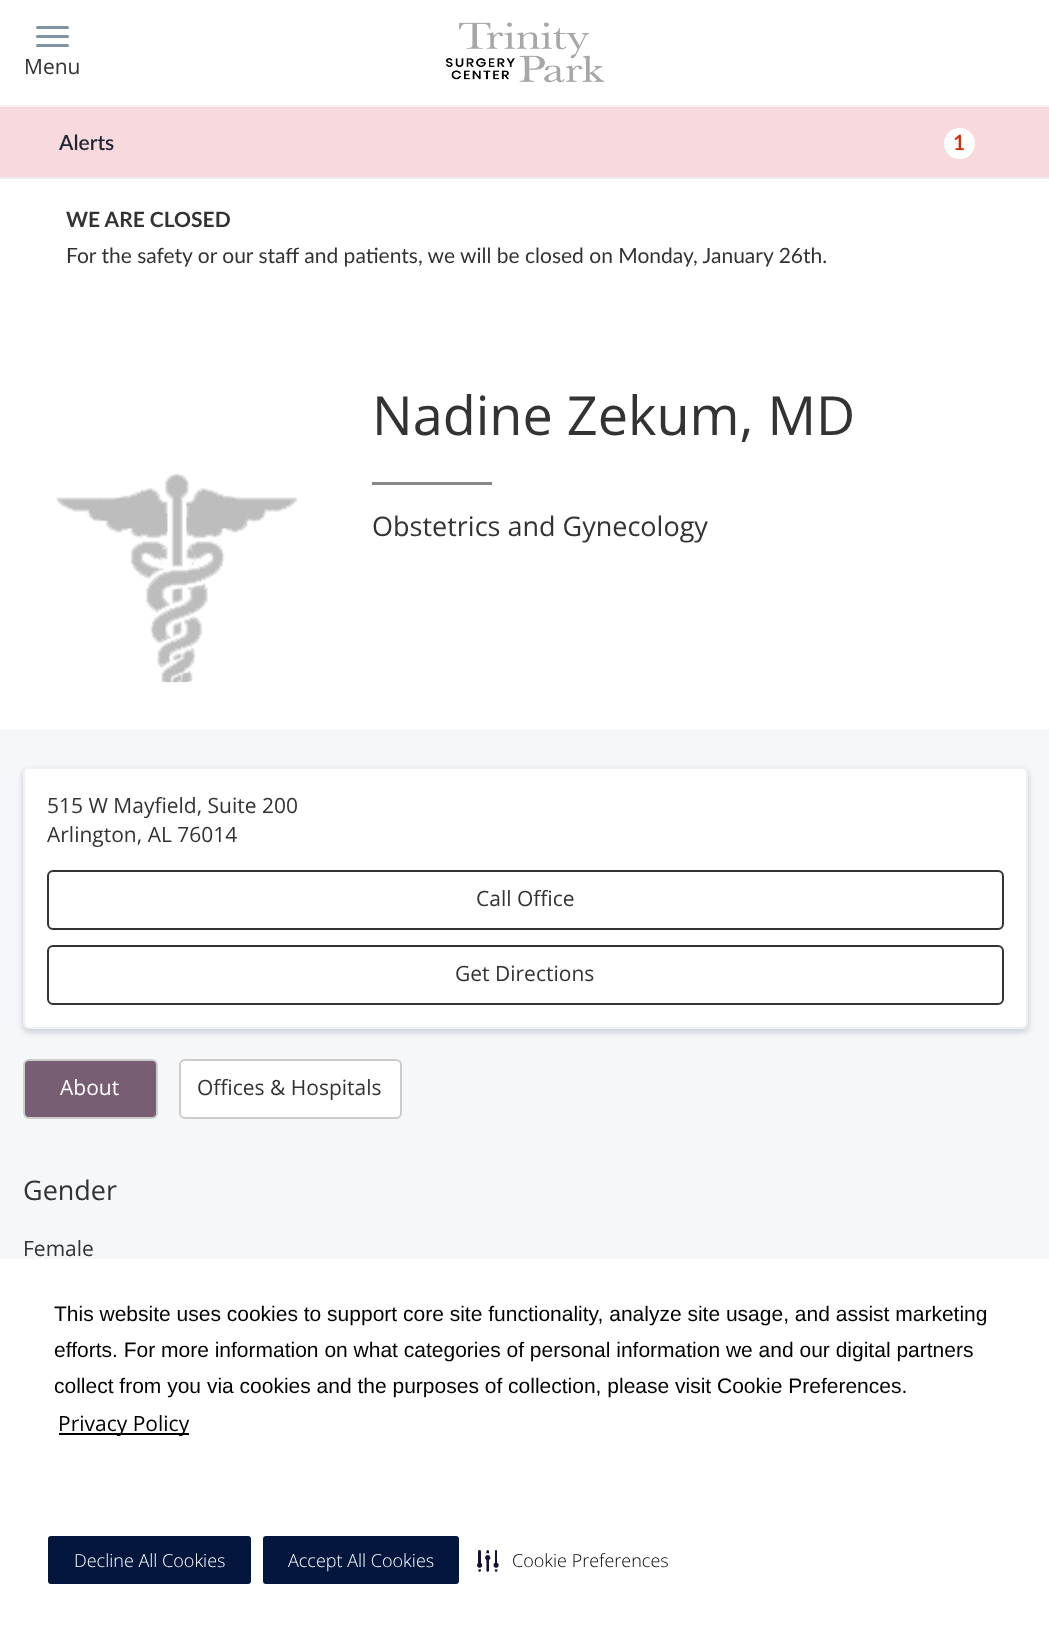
<svg xmlns="http://www.w3.org/2000/svg" width="1049" height="1632" viewBox="0 0 1049 1632">
  <defs>
    <filter id="blur1" x="-50%" y="-200%" width="200%" height="500%"><feGaussianBlur stdDeviation="3"/></filter>
  </defs>
  <rect width="100%" height="100%" fill="#f5f7f9"/>
  <rect x="0" y="0" width="1049" height="729" fill="#ffffff"/>
  <rect x="0" y="105" width="1049" height="2" fill="#f5f3f3"/>
  <rect x="36" y="26" width="33" height="3" rx="1.5" fill="#7f94a2"/>
  <rect x="36" y="35" width="33" height="3" rx="1.5" fill="#7f94a2"/>
  <rect x="36" y="44" width="33" height="3" rx="1.5" fill="#7f94a2"/>
  <text x="24" y="74" font-family="Open Sans" font-size="21" fill="#333333">Menu</text>
  <image x="445" y="22" width="160" height="61" href="img1.png"/>
  <rect x="0" y="107" width="1049" height="70" fill="#f8dade"/>
  <text x="59" y="150" font-family="Lato" font-size="21" font-weight="600" fill="#1f2532">Alerts</text>
  <circle cx="959.5" cy="143.5" r="15.5" fill="#ffffff"/>
  <text x="953" y="150" font-family="Lato" font-size="21" font-weight="600" fill="#df2500">1</text>
  <rect x="0" y="177" width="1049" height="2" fill="#eeeeee"/>
  <text x="66" y="227" font-family="Lato" font-size="21" font-weight="bold" fill="#333333">WE ARE CLOSED</text>
  <text x="66" y="263" font-family="Lato" font-size="21" fill="#333333">For the safety or our staff and patients, we will be closed on Monday, January 26th.</text>
  <image x="56" y="473" width="242" height="210" href="img2.png"/>
  <text x="372" y="435" font-family="Open Sans" font-size="54" fill="#333333">Nadine Zekum, MD</text>
  <rect x="372" y="482" width="120" height="3" fill="#888888"/>
  <text x="372" y="536" font-family="Open Sans" font-size="27" fill="#333333">Obstetrics and Gynecology</text>
  <rect x="23" y="770" width="1005" height="262" rx="6" fill="#061c3f" fill-opacity="0.2" filter="url(#blur1)"/>
  <rect x="24" y="768" width="1003" height="260" rx="5" fill="#ffffff" stroke="#f1f1f1" stroke-width="2"/>
  <text x="47" y="813" font-family="Open Sans" font-size="21" fill="#333333">515 W Mayfield, Suite 200</text>
  <text x="47" y="842" font-family="Open Sans" font-size="21" fill="#333333">Arlington, AL 76014</text>
  <rect x="48" y="871" width="955" height="58" rx="5" fill="none" stroke="#333333" stroke-width="2"/>
  <text x="476" y="906" font-family="Open Sans" font-size="21" fill="#333333">Call Office</text>
  <rect x="48" y="946" width="955" height="58" rx="5" fill="none" stroke="#333333" stroke-width="2"/>
  <text x="455" y="981" font-family="Open Sans" font-size="21" fill="#333333">Get Directions</text>
  <rect x="24" y="1060" width="133" height="58" rx="5" fill="#785e73" stroke="#cccccc" stroke-width="2"/>
  <text x="60" y="1095" font-family="Open Sans" font-size="21" fill="#ffffff">About</text>
  <rect x="180" y="1060" width="221" height="58" rx="5" fill="#ffffff" stroke="#cccccc" stroke-width="2"/>
  <text x="197" y="1095" font-family="Open Sans" font-size="21" fill="#333333">Offices &amp; Hospitals</text>
  <text x="23" y="1200" font-family="Open Sans" font-size="27" fill="#333333">Gender</text>
  <text x="23" y="1256" font-family="Open Sans" font-size="21" fill="#333333">Female</text>
  <rect x="0" y="1259" width="1049" height="373" fill="#ffffff"/>
  <text x="54" y="1321" font-family="Liberation Sans" font-size="21" fill="#000000">This website uses cookies to support core site functionality, analyze site usage, and assist marketing</text>
  <text x="54" y="1357" font-family="Liberation Sans" font-size="21" fill="#000000">efforts. For more information on what categories of personal information we and our digital partners</text>
  <text x="54" y="1393" font-family="Liberation Sans" font-size="21" fill="#000000">collect from you via cookies and the purposes of collection, please visit Cookie Preferences.</text>
  <rect x="59" y="1433" width="130" height="2" fill="#000000"/>
  <text x="58" y="1431" font-family="Open Sans" font-size="21" fill="#000000">Privacy Policy</text>
  <rect x="49" y="1537" width="201" height="46" rx="2" fill="#03173e" stroke="#03173e" stroke-width="2"/>
  <text x="74" y="1567" font-family="Open Sans" font-size="18" font-weight="300" fill="#ffffff">Decline All Cookies</text>
  <rect x="264" y="1537" width="194" height="46" rx="2" fill="#03173e" stroke="#03173e" stroke-width="2"/>
  <text x="288" y="1567" font-family="Open Sans" font-size="18" font-weight="300" fill="#ffffff">Accept All Cookies</text>
  <image x="477" y="1550" width="22" height="22" href="img3.png"/>
  <text x="512" y="1567" font-family="Open Sans" font-size="18" font-weight="300" fill="#000000">Cookie Preferences</text>
</svg>
